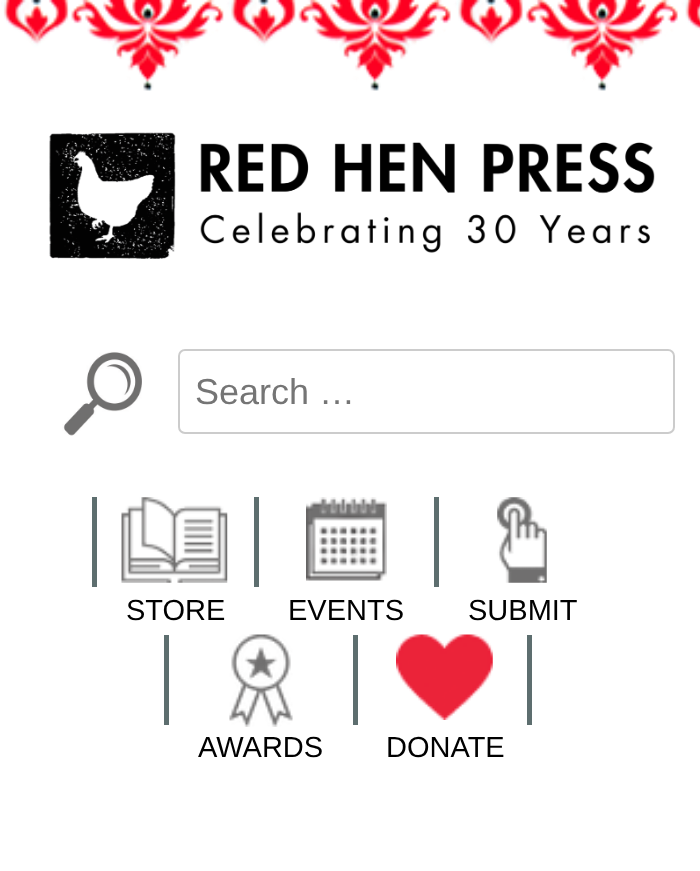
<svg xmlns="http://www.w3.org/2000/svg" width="700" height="871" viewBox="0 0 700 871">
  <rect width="100%" height="100%" fill="#ffffff"/>
  <image x="1" y="0" width="699" height="91" href="img1.png"/>
  <image x="49" y="132" width="606" height="127" href="img2.png"/>
  <image x="62" y="351" width="80" height="85" href="img3.png"/>
  <rect x="179" y="350" width="495" height="83" rx="6" fill="none" stroke="#cccccc" stroke-width="2"/>
  <text x="195" y="404" font-family="Liberation Sans" font-size="36" fill="#757575">Search …</text>
  <image x="121" y="497" width="107" height="86" href="img4.png"/>
  <rect x="92" y="497" width="5" height="90" fill="#5d6e6f"/>
  <text x="126" y="620" font-family="Liberation Sans" font-size="29" fill="#000000">STORE</text>
  <image x="306" y="497" width="81" height="84" href="img5.png"/>
  <rect x="254" y="497" width="5" height="90" fill="#5d6e6f"/>
  <text x="288" y="620" font-family="Liberation Sans" font-size="29" fill="#000000">EVENTS</text>
  <image x="497" y="497" width="50" height="86" href="img6.png"/>
  <rect x="434" y="497" width="5" height="90" fill="#5d6e6f"/>
  <text x="468" y="620" font-family="Liberation Sans" font-size="29" fill="#000000">SUBMIT</text>
  <image x="229" y="634" width="64" height="93" href="img7.png"/>
  <rect x="164" y="635" width="5" height="90" fill="#5d6e6f"/>
  <text x="198" y="757" font-family="Liberation Sans" font-size="29" fill="#000000">AWARDS</text>
  <image x="396" y="634" width="97" height="86" href="img8.png"/>
  <rect x="353" y="635" width="5" height="90" fill="#5d6e6f"/>
  <rect x="527" y="635" width="5" height="90" fill="#5d6e6f"/>
  <text x="386" y="757" font-family="Liberation Sans" font-size="29" fill="#000000">DONATE</text>
</svg>
